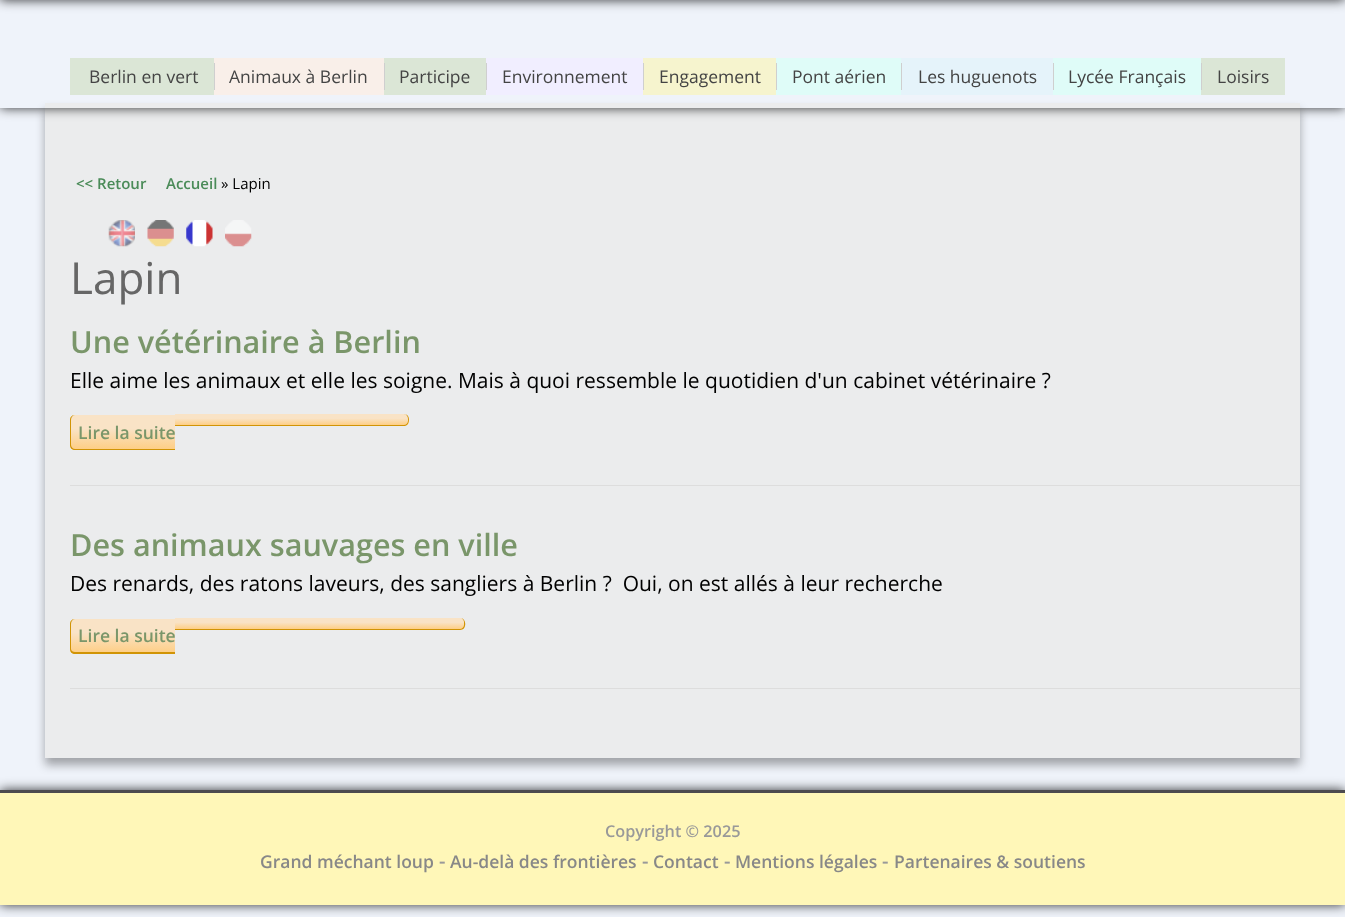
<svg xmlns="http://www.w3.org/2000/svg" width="1345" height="917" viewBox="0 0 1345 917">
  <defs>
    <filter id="blur1" x="-50%" y="-200%" width="200%" height="500%"><feGaussianBlur stdDeviation="6"/></filter>
    <filter id="blur2" x="-50%" y="-200%" width="200%" height="500%"><feGaussianBlur stdDeviation="5"/></filter>
    <clipPath id="clip1"><path d="M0 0H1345V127H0ZM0-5H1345V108H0Z" clip-rule="evenodd"/></clipPath>
    <clipPath id="clip2"><path d="M75 415H175V450H75C72 450 70 448 70 445V420C70 417 72 415 75 415Z"/></clipPath>
    <linearGradient id="g1" gradientUnits="userSpaceOnUse" x1="123" y1="415" x2="123" y2="449"><stop offset="0" stop-color="#f9e3c6"/><stop offset="0.4" stop-color="#f9e3c6"/><stop offset="1" stop-color="#fece85"/></linearGradient>
    <clipPath id="clip3"><path d="M175 414H404C407 414 409 416 409 419V421C409 424 407 426 404 426H175Z"/></clipPath>
    <linearGradient id="g2" gradientUnits="userSpaceOnUse" x1="291" y1="414" x2="291" y2="425"><stop offset="0" stop-color="#f9e3c6"/><stop offset="0.4" stop-color="#f9e3c6"/><stop offset="1" stop-color="#fece85"/></linearGradient>
    <clipPath id="clip4"><path d="M75 619H175V654H75C72 654 70 652 70 649V624C70 621 72 619 75 619Z"/></clipPath>
    <linearGradient id="g3" gradientUnits="userSpaceOnUse" x1="123" y1="619" x2="123" y2="653"><stop offset="0" stop-color="#f9e3c6"/><stop offset="0.4" stop-color="#f9e3c6"/><stop offset="1" stop-color="#fece85"/></linearGradient>
    <clipPath id="clip5"><path d="M175 618H460C463 618 465 620 465 623V625C465 628 463 630 460 630H175Z"/></clipPath>
    <linearGradient id="g4" gradientUnits="userSpaceOnUse" x1="319" y1="618" x2="319" y2="629"><stop offset="0" stop-color="#f9e3c6"/><stop offset="0.4" stop-color="#f9e3c6"/><stop offset="1" stop-color="#fece85"/></linearGradient>
  </defs>
  <rect width="100%" height="100%" fill="#eff3fa"/>
  <rect x="0" y="-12" width="1345" height="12" fill="#000000" fill-opacity="0.8" filter="url(#blur1)"/>
  <rect x="45" y="110" width="1255" height="655" fill="#000000" fill-opacity="0.33" filter="url(#blur2)"/>
  <rect x="45" y="103" width="1255" height="655" fill="#ebeced"/>
  <g clip-path="url(#clip1)">
    <rect x="0" y="-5" width="1345" height="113" fill="#000000" fill-opacity="0.8" filter="url(#blur1)"/>
  </g>
  <rect x="70" y="58" width="144" height="37" fill="#dbe6d6"/>
  <text x="89" y="83" font-family="Open Sans" font-size="17.5" fill="#444444">Berlin en vert</text>
  <rect x="214" y="58" width="170" height="37" fill="#f9efe9"/>
  <rect x="214" y="63" width="1" height="27" fill="#cfcfcf"/>
  <text x="229" y="83" font-family="Open Sans" font-size="17.5" fill="#444444">Animaux à Berlin</text>
  <rect x="384" y="58" width="102" height="37" fill="#dbe6d6"/>
  <rect x="384" y="63" width="1" height="27" fill="#cfcfcf"/>
  <text x="399" y="83" font-family="Open Sans" font-size="17.5" fill="#444444">Participe</text>
  <rect x="486" y="58" width="157" height="37" fill="#f1eeff"/>
  <rect x="486" y="63" width="1" height="27" fill="#cfcfcf"/>
  <text x="502" y="83" font-family="Open Sans" font-size="17.5" fill="#444444">Environnement</text>
  <rect x="643" y="58" width="133" height="37" fill="#f6f4ce"/>
  <rect x="643" y="63" width="1" height="27" fill="#cfcfcf"/>
  <text x="659" y="83" font-family="Open Sans" font-size="17.5" fill="#444444">Engagement</text>
  <rect x="776" y="58" width="125" height="37" fill="#dffcf8"/>
  <rect x="776" y="63" width="1" height="27" fill="#cfcfcf"/>
  <text x="792" y="83" font-family="Open Sans" font-size="17.5" fill="#444444">Pont aérien</text>
  <rect x="901" y="58" width="152" height="37" fill="#e5f3fa"/>
  <rect x="901" y="63" width="1" height="27" fill="#cfcfcf"/>
  <text x="918" y="83" font-family="Open Sans" font-size="17.5" fill="#444444">Les huguenots</text>
  <rect x="1053" y="58" width="148" height="37" fill="#dffcf8"/>
  <rect x="1053" y="63" width="1" height="27" fill="#cfcfcf"/>
  <text x="1068" y="83" font-family="Open Sans" font-size="17.5" fill="#444444">Lycée Français</text>
  <rect x="1201" y="58" width="84" height="37" fill="#dbe6d6"/>
  <rect x="1201" y="63" width="1" height="27" fill="#cfcfcf"/>
  <text x="1217" y="83" font-family="Open Sans" font-size="17.5" fill="#444444">Loisirs</text>
  <text x="76" y="189" font-family="Open Sans" font-size="15" font-weight="600" fill="#4a8b58">&lt;&lt; Retour</text>
  <text x="166" y="189" font-family="Open Sans" font-size="15" font-weight="600" fill="#4a8b58">Accueil</text>
  <text x="221" y="189" font-family="Open Sans" font-size="15" fill="#000000">» Lapin</text>
  <image x="108" y="220" width="27" height="27" href="img1.png"/>
  <image x="147" y="220" width="27" height="27" href="img2.png"/>
  <image x="186" y="220" width="27" height="27" href="img3.png"/>
  <image x="225" y="220" width="27" height="27" href="img4.png"/>
  <text x="70" y="294" font-family="Open Sans" font-size="44" fill="#666666">Lapin</text>
  <rect x="70" y="485" width="1230" height="1" fill="#dddddd"/>
  <text x="70" y="353" font-family="Open Sans" font-size="30.6" font-weight="600" fill="#7a966a">Une vétérinaire à Berlin</text>
  <text x="70" y="388" font-family="Open Sans" font-size="21" fill="#000000">Elle aime les animaux et elle les soigne. Mais à quoi ressemble le quotidien d'un cabinet vétérinaire ?</text>
  <g clip-path="url(#clip2)">
    <path d="M75 415H175V449H70V420C70 417 72 415 75 415Z" fill="url(#g1)"/>
  </g>
  <path d="M75 415H175V450H75C72 450 70 448 70 445V420C70 417 72 415 75 415ZM75 415H175V449H75C73 449 71 447 71 445V420C71 417 73 415 75 415Z" fill="#d19405" fill-rule="evenodd"/>
  <text x="78" y="439" font-family="Open Sans" font-size="17.5" font-weight="600" fill="#7a966a">Lire la suite</text>
  <g clip-path="url(#clip3)">
    <path d="M175 414H404C407 414 409 416 409 419V425H175Z" fill="url(#g2)"/>
  </g>
  <path d="M175 414H405L407 415L408 416C410 419 409 425 405 426H175ZM175 414H404C406 414 408 416 408 419V421C408 423 406 425 404 425H175Z" fill="#d19405" fill-rule="evenodd"/>
  <rect x="70" y="688" width="1230" height="1" fill="#dddddd"/>
  <text x="70" y="556" font-family="Open Sans" font-size="30.6" font-weight="600" fill="#7a966a">Des animaux sauvages en ville</text>
  <text x="70" y="591" font-family="Open Sans" font-size="21" fill="#000000" xml:space="preserve">Des renards, des ratons laveurs, des sangliers à Berlin ?  Oui, on est allés à leur recherche</text>
  <g clip-path="url(#clip4)">
    <path d="M75 619H175V653H70V624C70 621 72 619 75 619Z" fill="url(#g3)"/>
  </g>
  <path d="M75 619H175V654H75C72 654 70 652 70 649V624C70 621 72 619 75 619ZM75 619H175V652H75C73 652 71 651 71 649V624C71 621 73 619 75 619Z" fill="#d19405" fill-rule="evenodd"/>
  <text x="78" y="642" font-family="Open Sans" font-size="17.5" font-weight="600" fill="#7a966a">Lire la suite</text>
  <g clip-path="url(#clip5)">
    <path d="M175 618H460C463 618 465 620 465 623V629H175Z" fill="url(#g4)"/>
  </g>
  <path d="M175 618H460C467 618 467 630 460 630H175ZM175 618H460C462 618 464 620 464 622V625C464 627 462 629 460 629H175Z" fill="#d19405" fill-rule="evenodd"/>
  <rect x="0" y="790" width="1345" height="115" fill="#000000" fill-opacity="0.8" filter="url(#blur1)"/>
  <rect x="0" y="793" width="1345" height="112" fill="#fff7b8"/>
  <rect x="0" y="790" width="1345" height="3" fill="#4d4b4e"/>
  <text x="605" y="837" font-family="Open Sans" font-size="16.25" font-weight="600" fill="#999999">Copyright © 2025</text>
  <text x="260" y="868" font-family="Open Sans" font-size="17.5" font-weight="600" fill="#888888">Grand méchant loup</text>
  <text x="439" y="868" font-family="Open Sans" font-size="20" font-weight="600" fill="#999999">-</text>
  <text x="450" y="868" font-family="Open Sans" font-size="17.5" font-weight="600" fill="#888888">Au-delà des frontières</text>
  <text x="642" y="868" font-family="Open Sans" font-size="20" font-weight="600" fill="#999999">-</text>
  <text x="653" y="868" font-family="Open Sans" font-size="17.5" font-weight="600" fill="#888888">Contact</text>
  <text x="724" y="868" font-family="Open Sans" font-size="20" font-weight="600" fill="#999999">-</text>
  <text x="735" y="868" font-family="Open Sans" font-size="17.5" font-weight="600" fill="#888888">Mentions légales</text>
  <text x="882" y="868" font-family="Open Sans" font-size="20" font-weight="600" fill="#999999">-</text>
  <text x="894" y="868" font-family="Open Sans" font-size="17.5" font-weight="600" fill="#888888">Partenaires &amp; soutiens</text>
</svg>
